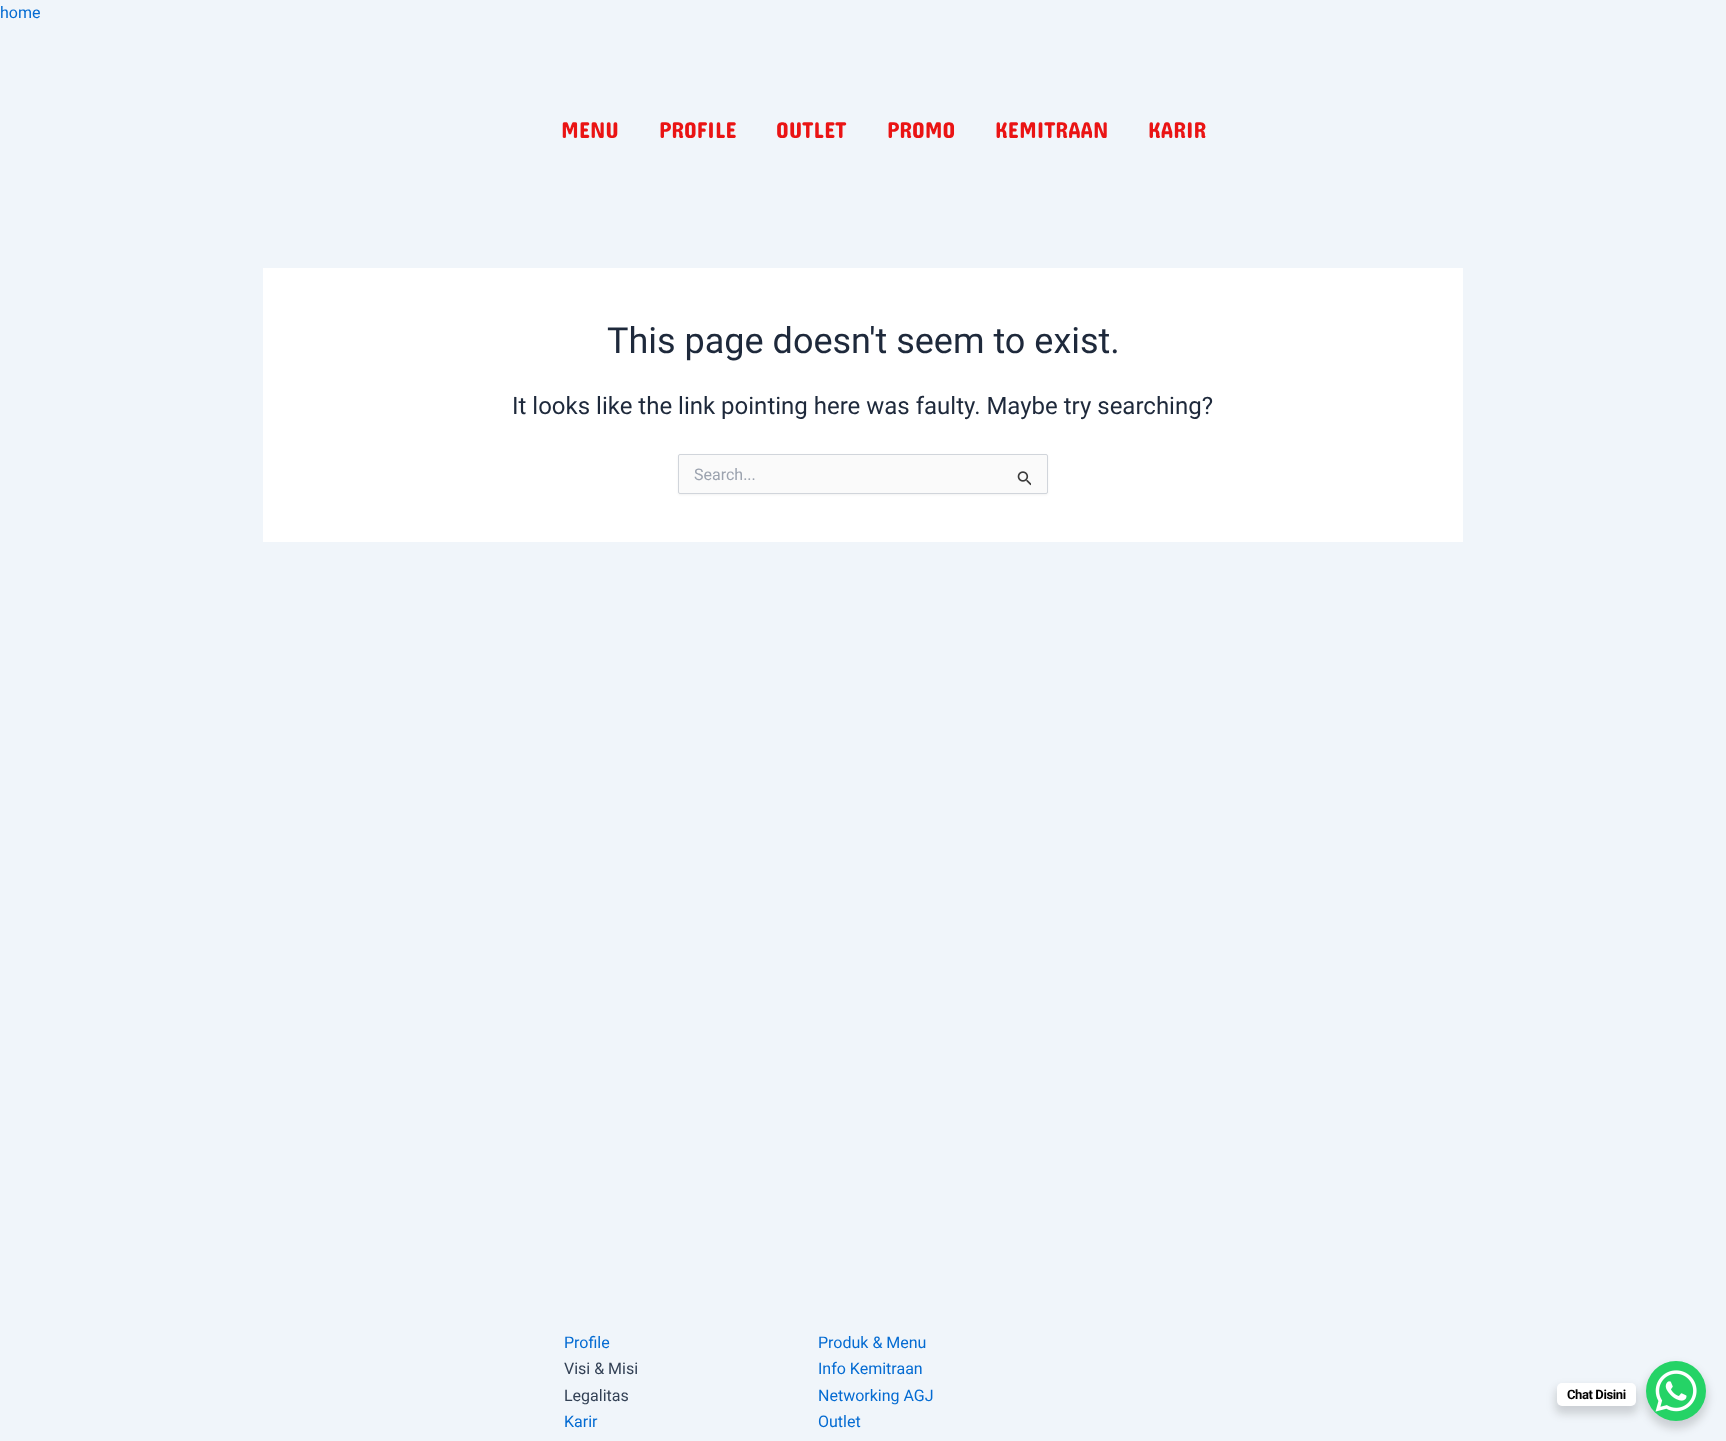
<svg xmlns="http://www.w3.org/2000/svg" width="1726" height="1441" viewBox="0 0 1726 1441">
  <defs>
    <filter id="blur1" x="-50%" y="-200%" width="200%" height="500%"><feGaussianBlur stdDeviation="1"/></filter>
    <filter id="blur2" x="-50%" y="-200%" width="200%" height="500%"><feGaussianBlur stdDeviation="4"/></filter>
  </defs>
  <rect width="100%" height="100%" fill="#f0f5fa"/>
  <text x="0" y="18" font-family="Roboto" font-size="16" fill="#046bd2">home</text>
  <text x="561" y="138" font-family="Concert One" font-size="23" fill="#ea1414">MENU</text>
  <text x="659" y="138" font-family="Concert One" font-size="23" fill="#ea1414">PROFILE</text>
  <text x="776" y="138" font-family="Concert One" font-size="23" fill="#ea1414">OUTLET</text>
  <text x="887" y="138" font-family="Concert One" font-size="23" fill="#ea1414">PROMO</text>
  <text x="995" y="138" font-family="Concert One" font-size="23" fill="#ea1414">KEMITRAAN</text>
  <text x="1148" y="138" font-family="Concert One" font-size="23" fill="#ea1414">KARIR</text>
  <rect x="263" y="268" width="1200" height="274" fill="#ffffff"/>
  <text x="607" y="353" font-family="Roboto" font-size="36" fill="#1e293b">This page doesn't seem to exist.</text>
  <text x="512" y="414" font-family="Roboto" font-size="24" fill="#1e293b">It looks like the link pointing here was faulty. Maybe try searching?</text>
  <rect x="678" y="455" width="370" height="40" rx="2" fill="#000000" fill-opacity="0.05" filter="url(#blur1)"/>
  <rect x="678.5" y="454.5" width="369" height="39" rx="1.5" fill="#fafafa" stroke="#d1d5db"/>
  <text x="694" y="480" font-family="Roboto" font-size="16" fill="#9ca3af">Search...</text>
  <image x="1017" y="471" width="14" height="15" href="img1.png"/>
  <text x="564" y="1348" font-family="Roboto" font-size="16" fill="#046bd2">Profile</text>
  <text x="564" y="1374" font-family="Roboto" font-size="16" fill="#334155">Visi &amp; Misi</text>
  <text x="564" y="1401" font-family="Roboto" font-size="16" fill="#334155">Legalitas</text>
  <text x="564" y="1427" font-family="Roboto" font-size="16" fill="#046bd2">Karir</text>
  <text x="818" y="1348" font-family="Roboto" font-size="16" fill="#046bd2">Produk &amp; Menu</text>
  <text x="818" y="1374" font-family="Roboto" font-size="16" fill="#046bd2">Info Kemitraan</text>
  <text x="818" y="1401" font-family="Roboto" font-size="16" fill="#046bd2">Networking AGJ</text>
  <text x="818" y="1427" font-family="Roboto" font-size="16" fill="#046bd2">Outlet</text>
  <rect x="1644" y="1365" width="64" height="64" rx="32" fill="#000000" fill-opacity="0.15" filter="url(#blur2)"/>
  <circle cx="1676" cy="1391" r="30" fill="#25d366"/>
  <rect x="1555" y="1387" width="83" height="27" rx="7" fill="#000000" fill-opacity="0.15" filter="url(#blur2)"/>
  <rect x="1557" y="1383" width="79" height="23" rx="5" fill="#ffffff"/>
  <text x="1567" y="1399" font-family="Roboto" font-size="13" font-weight="bold" letter-spacing="-0.4" fill="#000000">Chat Disini</text>
  <image x="1655" y="1370" width="42" height="42" href="img2.png"/>
</svg>
